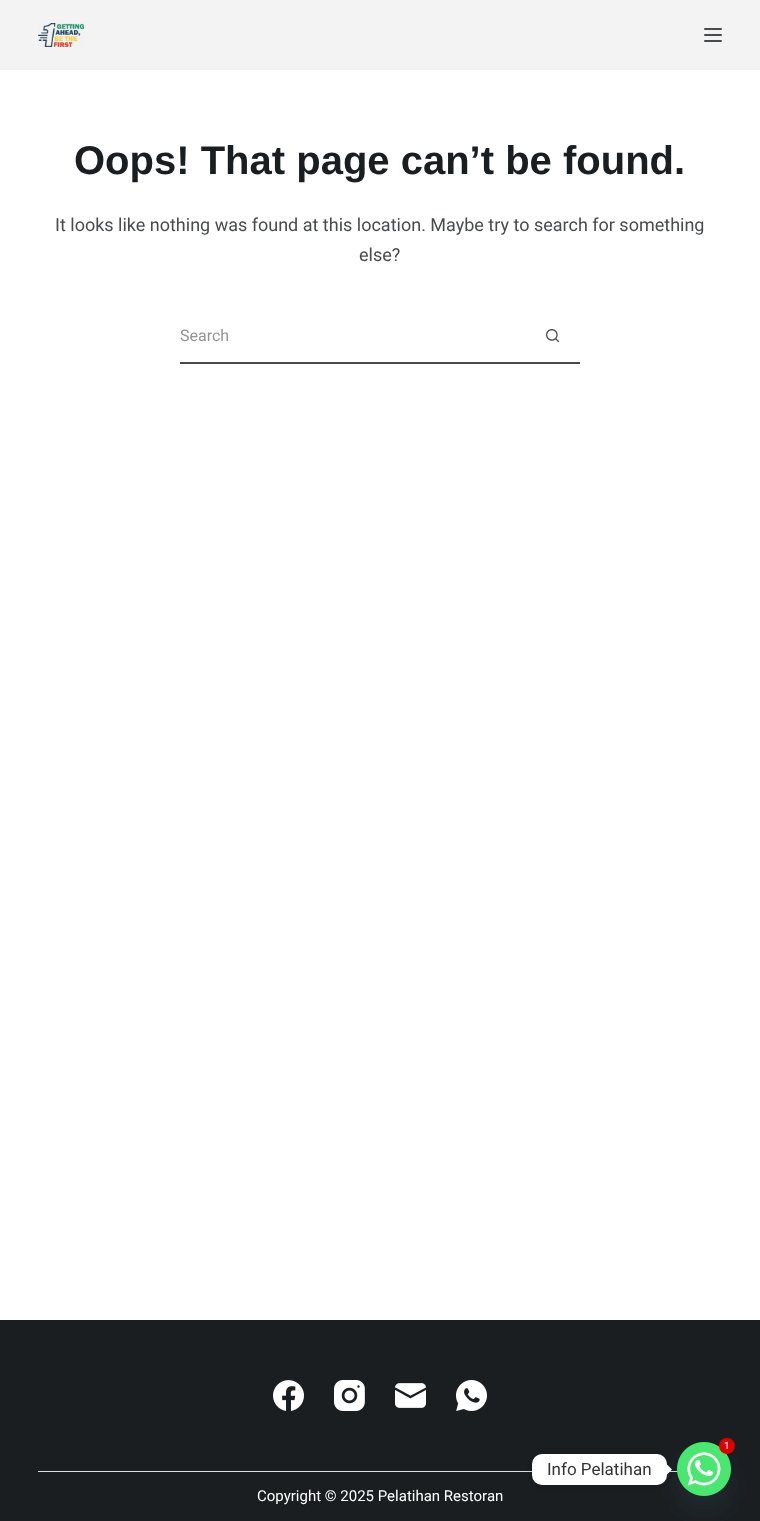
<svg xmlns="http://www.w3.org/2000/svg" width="760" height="1521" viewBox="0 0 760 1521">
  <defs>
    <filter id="blur1" x="-50%" y="-200%" width="200%" height="500%"><feGaussianBlur stdDeviation="12"/></filter>
    <filter id="blur2" x="-50%" y="-200%" width="200%" height="500%"><feGaussianBlur stdDeviation="4"/></filter>
  </defs>
  <rect width="100%" height="100%" fill="#ffffff"/>
  <rect x="0" y="0" width="760" height="70" fill="#f3f3f3"/>
  <image x="38" y="23" width="46" height="24" href="img1.png"/>
  <rect x="704" y="28" width="18" height="2" rx="1" fill="#484b4d"/>
  <rect x="704" y="34" width="18" height="2" rx="1" fill="#484b4d"/>
  <rect x="704" y="40" width="18" height="2" rx="1" fill="#484b4d"/>
  <text x="74" y="174" font-family="Liberation Sans" font-size="40" font-weight="bold" fill="#1a1e21">Oops! That page can’t be found.</text>
  <text x="55" y="231" font-family="Roboto" font-size="18" fill="#484b4d">It looks like nothing was found at this location. Maybe try to search for something</text>
  <text x="359" y="261" font-family="Roboto" font-size="18" fill="#484b4d">else?</text>
  <rect x="180" y="362" width="400" height="2" fill="#484b4d"/>
  <text x="180" y="341" font-family="Roboto" font-size="16" fill="#919394">Search</text>
  <image x="546" y="329" width="13" height="13" href="img2.png"/>
  <rect x="0" y="1320" width="760" height="201" fill="#1a1e21"/>
  <image x="273" y="1380" width="31" height="31" href="img3.png"/>
  <image x="334" y="1380" width="31" height="31" href="img4.png"/>
  <image x="395" y="1383" width="31" height="25" href="img5.png"/>
  <image x="456" y="1380" width="31" height="31" href="img6.png"/>
  <rect x="38" y="1471" width="640" height="1" fill="#dddddd"/>
  <text x="257" y="1501" font-family="Roboto" font-size="15" fill="#ffffff">Copyright © 2025 Pelatihan Restoran</text>
  <rect x="677" y="1458" width="54" height="54" rx="27" fill="#49687e" fill-opacity="0.16" filter="url(#blur1)"/>
  <image x="677" y="1442" width="54" height="54" href="img7.png"/>
  <circle cx="727" cy="1446" r="8" fill="#dd0000"/>
  <text x="724" y="1449" font-family="Roboto" font-size="10" fill="#ffffff">1</text>
  <rect x="532" y="1455" width="135" height="31" rx="10" fill="#000000" fill-opacity="0.15" filter="url(#blur2)"/>
  <rect x="532" y="1454" width="135" height="31" rx="10" fill="#ffffff"/>
  <text x="547" y="1475" font-family="Roboto" font-size="17" fill="#333333">Info Pelatihan</text>
  <path d="M667 1474.5V1464.5L672 1469.5Z" fill="#ffffff"/>
</svg>
